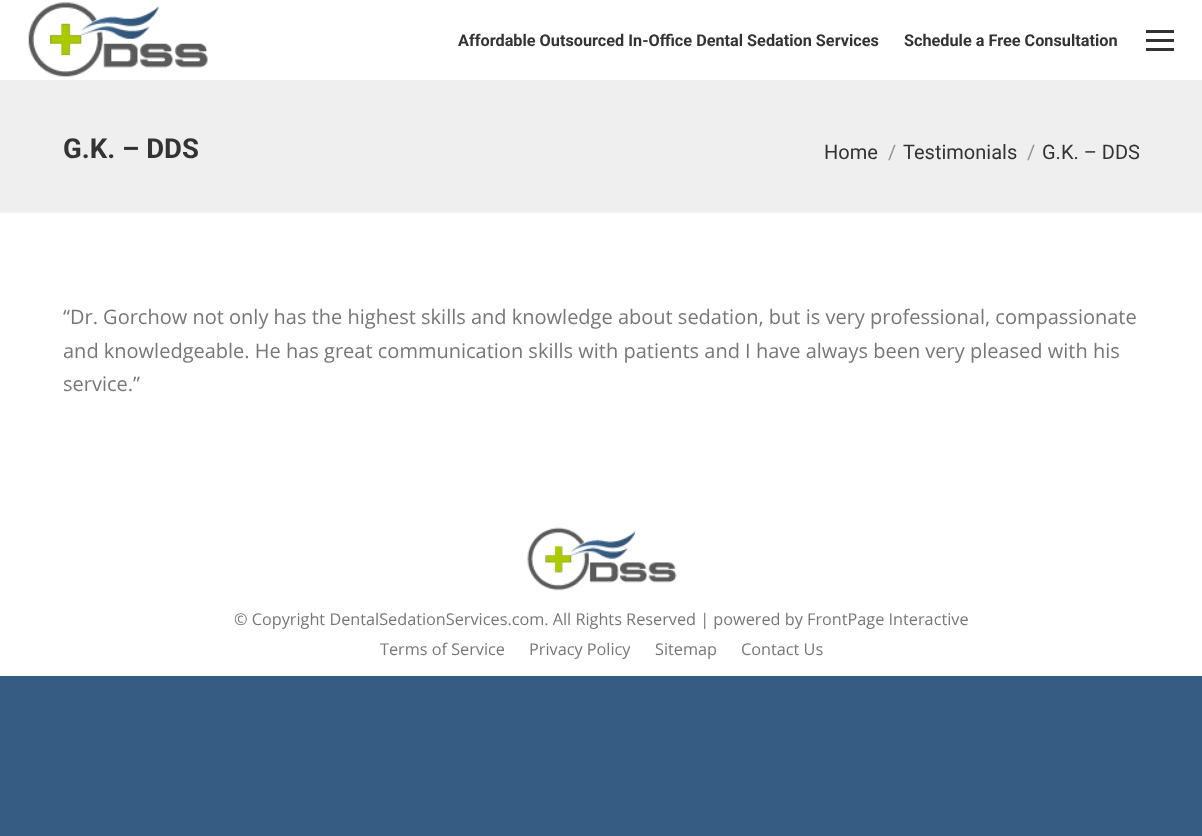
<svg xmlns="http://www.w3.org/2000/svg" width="1202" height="836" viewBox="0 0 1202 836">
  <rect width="100%" height="100%" fill="#355c83"/>
  <rect x="0" y="0" width="1202" height="676" fill="#ffffff"/>
  <image x="28" y="2" width="180" height="75" href="img1.png"/>
  <text x="458" y="46" font-family="Roboto" font-size="16.25" font-weight="bold" fill="#333333">Affordable Outsourced In-Office Dental Sedation Services</text>
  <text x="904" y="46" font-family="Roboto" font-size="16.25" font-weight="bold" fill="#333333">Schedule a Free Consultation</text>
  <rect x="1146" y="30" width="28" height="3" fill="#333333"/>
  <rect x="1146" y="39" width="28" height="3" fill="#333333"/>
  <rect x="1146" y="48" width="28" height="3" fill="#333333"/>
  <rect x="0" y="80" width="1202" height="133" fill="#efefef"/>
  <text x="63" y="158" font-family="Roboto" font-size="27.5" font-weight="bold" fill="#333333">G.K. – DDS</text>
  <text x="824" y="159" font-family="Roboto" font-size="20" fill="#333333">Home</text>
  <text x="888" y="159" font-family="Roboto" font-size="20" fill="#949494">/</text>
  <text x="903" y="159" font-family="Roboto" font-size="20" fill="#333333">Testimonials</text>
  <text x="1027" y="159" font-family="Roboto" font-size="20" fill="#949494">/</text>
  <text x="1042" y="159" font-family="Roboto" font-size="20" fill="#333333">G.K. – DDS</text>
  <text x="63" y="324" font-family="Open Sans" font-size="20" fill="#777777">“Dr. Gorchow not only has the highest skills and knowledge about sedation, but is very professional, compassionate</text>
  <text x="63" y="358" font-family="Open Sans" font-size="20" fill="#777777">and knowledgeable. He has great communication skills with patients and I have always been very pleased with his</text>
  <text x="63" y="391" font-family="Open Sans" font-size="20" fill="#777777">service.”</text>
  <image x="527" y="527" width="150" height="64" href="img2.png"/>
  <text x="234" y="625" font-family="Open Sans" font-size="16.25" fill="#777777">© Copyright DentalSedationServices.com. All Rights Reserved | powered by FrontPage Interactive</text>
  <text x="380" y="655" font-family="Open Sans" font-size="16.25" fill="#777777">Terms of Service</text>
  <text x="529" y="655" font-family="Open Sans" font-size="16.25" fill="#777777">Privacy Policy</text>
  <text x="655" y="655" font-family="Open Sans" font-size="16.25" fill="#777777">Sitemap</text>
  <text x="741" y="655" font-family="Open Sans" font-size="16.25" fill="#777777">Contact Us</text>
</svg>
